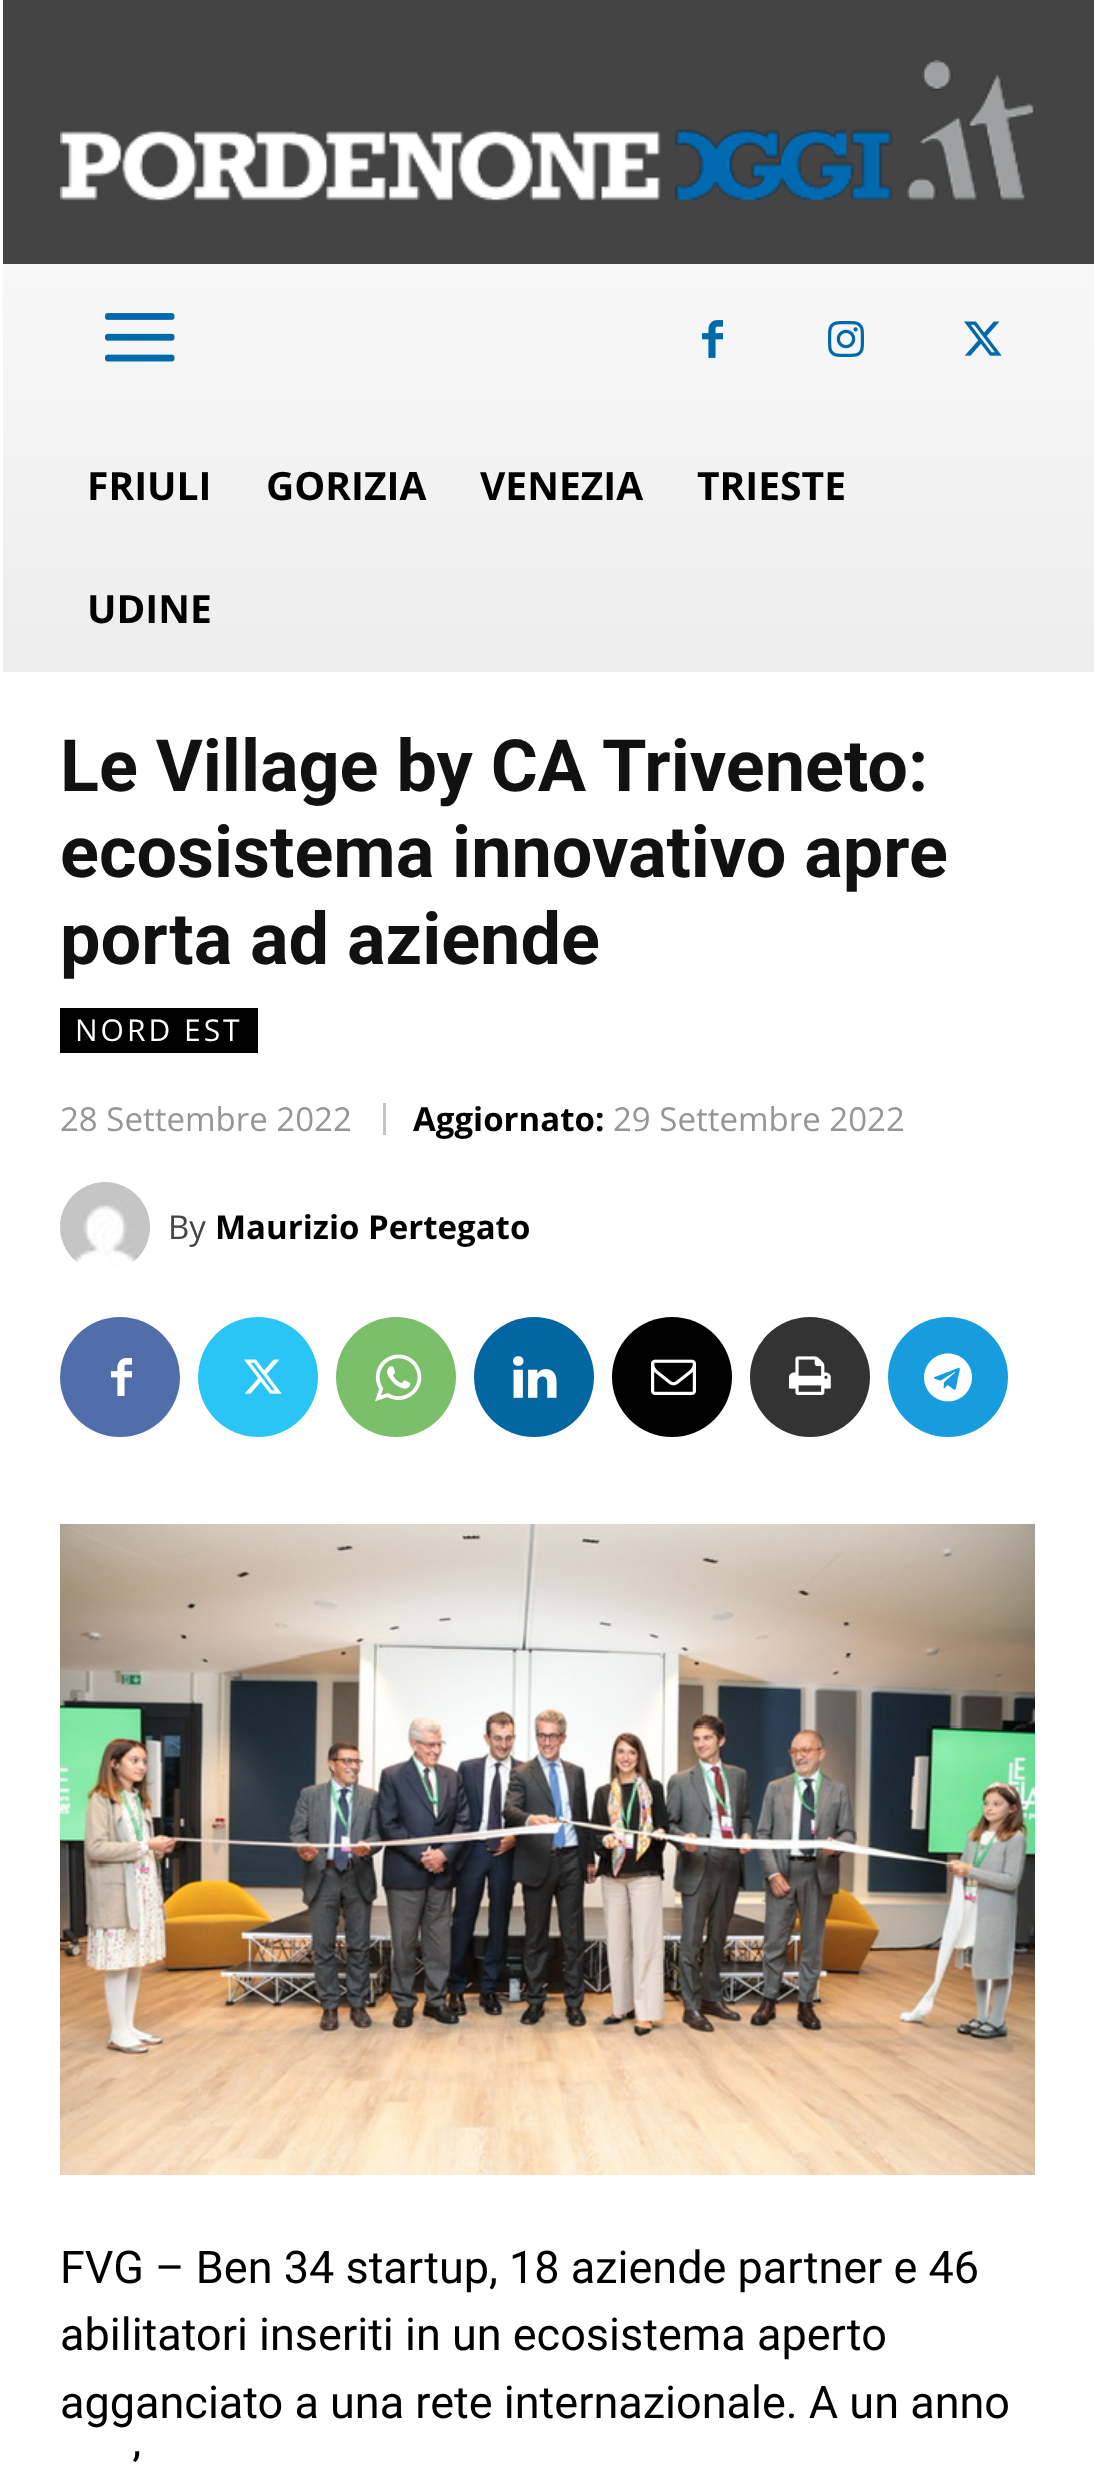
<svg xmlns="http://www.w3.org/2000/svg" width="1094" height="2471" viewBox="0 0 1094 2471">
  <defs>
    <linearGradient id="g1" gradientUnits="userSpaceOnUse" x1="549" y1="672" x2="549" y2="0"><stop offset="0" stop-color="#ededed"/><stop offset="1" stop-color="#ffffff"/></linearGradient>
  </defs>
  <rect width="100%" height="100%" fill="#ffffff"/>
  <rect x="3" y="0" width="1091" height="264" fill="#444444"/>
  <image x="60" y="60" width="975" height="141" href="img1.png"/>
  <rect x="3" y="264" width="1091" height="408" fill="url(#g1)"/>
  <image x="105" y="313" width="70" height="49" href="img2.png"/>
  <image x="702" y="320" width="21" height="38" href="img3.png"/>
  <image x="828" y="321" width="36" height="36" href="img4.png"/>
  <image x="964" y="321" width="38" height="35" href="img5.png"/>
  <text x="87" y="500" font-family="Open Sans" font-size="39" font-weight="bold" fill="#000000">FRIULI</text>
  <text x="266" y="500" font-family="Open Sans" font-size="39" font-weight="bold" fill="#000000">GORIZIA</text>
  <text x="480" y="500" font-family="Open Sans" font-size="39" font-weight="bold" fill="#000000">VENEZIA</text>
  <text x="697" y="500" font-family="Open Sans" font-size="39" font-weight="bold" fill="#000000">TRIESTE</text>
  <text x="87" y="623" font-family="Open Sans" font-size="39" font-weight="bold" fill="#000000">UDINE</text>
  <text x="60" y="791" font-family="Roboto" font-size="72" font-weight="bold" fill="#111111">Le Village by CA Triveneto:</text>
  <text x="60" y="877" font-family="Roboto" font-size="72" font-weight="bold" fill="#111111">ecosistema innovativo apre</text>
  <text x="60" y="964" font-family="Roboto" font-size="72" font-weight="bold" fill="#111111">porta ad aziende</text>
  <rect x="60" y="1008" width="198" height="45" fill="#000000"/>
  <text x="75" y="1041" font-family="Open Sans" font-size="30" letter-spacing="3" fill="#ffffff">NORD EST</text>
  <text x="60" y="1131" font-family="Open Sans" font-size="33" fill="#969696">28 Settembre 2022</text>
  <rect x="383" y="1103" width="3" height="32" fill="#c4c4c4"/>
  <text x="413" y="1131" font-family="Open Sans" font-size="33" font-weight="bold" fill="#000000">Aggiornato:</text>
  <text x="613" y="1131" font-family="Open Sans" font-size="33" fill="#969696">29 Settembre 2022</text>
  <image x="60" y="1182" width="90" height="84" href="img6.png"/>
  <text x="168" y="1239" font-family="Open Sans" font-size="33" fill="#444444">By</text>
  <text x="215" y="1239" font-family="Open Sans" font-size="33" font-weight="bold" fill="#000000">Maurizio Pertegato</text>
  <circle cx="120" cy="1377" r="60" fill="#516eab"/>
  <image x="111" y="1358" width="21" height="38" href="img7.png"/>
  <circle cx="258" cy="1377" r="60" fill="#29c5f6"/>
  <image x="244" y="1359" width="38" height="35" href="img8.png"/>
  <circle cx="396" cy="1377" r="60" fill="#7bbf6a"/>
  <image x="375" y="1354" width="47" height="48" href="img9.png"/>
  <circle cx="534" cy="1377" r="60" fill="#0266a0"/>
  <image x="513" y="1356" width="44" height="42" href="img10.png"/>
  <circle cx="672" cy="1377" r="60" fill="#000000"/>
  <image x="651" y="1359" width="45" height="36" href="img11.png"/>
  <circle cx="810" cy="1377" r="60" fill="#333333"/>
  <image x="789" y="1356" width="42" height="39" href="img12.png"/>
  <circle cx="948" cy="1377" r="60" fill="#179cde"/>
  <image x="924" y="1353" width="48" height="49" href="img13.png"/>
  <image x="60" y="1524" width="975" height="651" href="img14.png"/>
  <text x="60" y="2283" font-family="Roboto" font-size="45" fill="#000000">FVG – Ben 34 startup, 18 aziende partner e 46</text>
  <text x="60" y="2350" font-family="Roboto" font-size="45" fill="#000000">abilitatori inseriti in un ecosistema aperto</text>
  <text x="60" y="2418" font-family="Roboto" font-size="45" fill="#000000">agganciato a una rete internazionale. A un anno</text>
  <text x="132" y="2485" font-family="Roboto" font-size="45" fill="#000000">’</text>
</svg>
